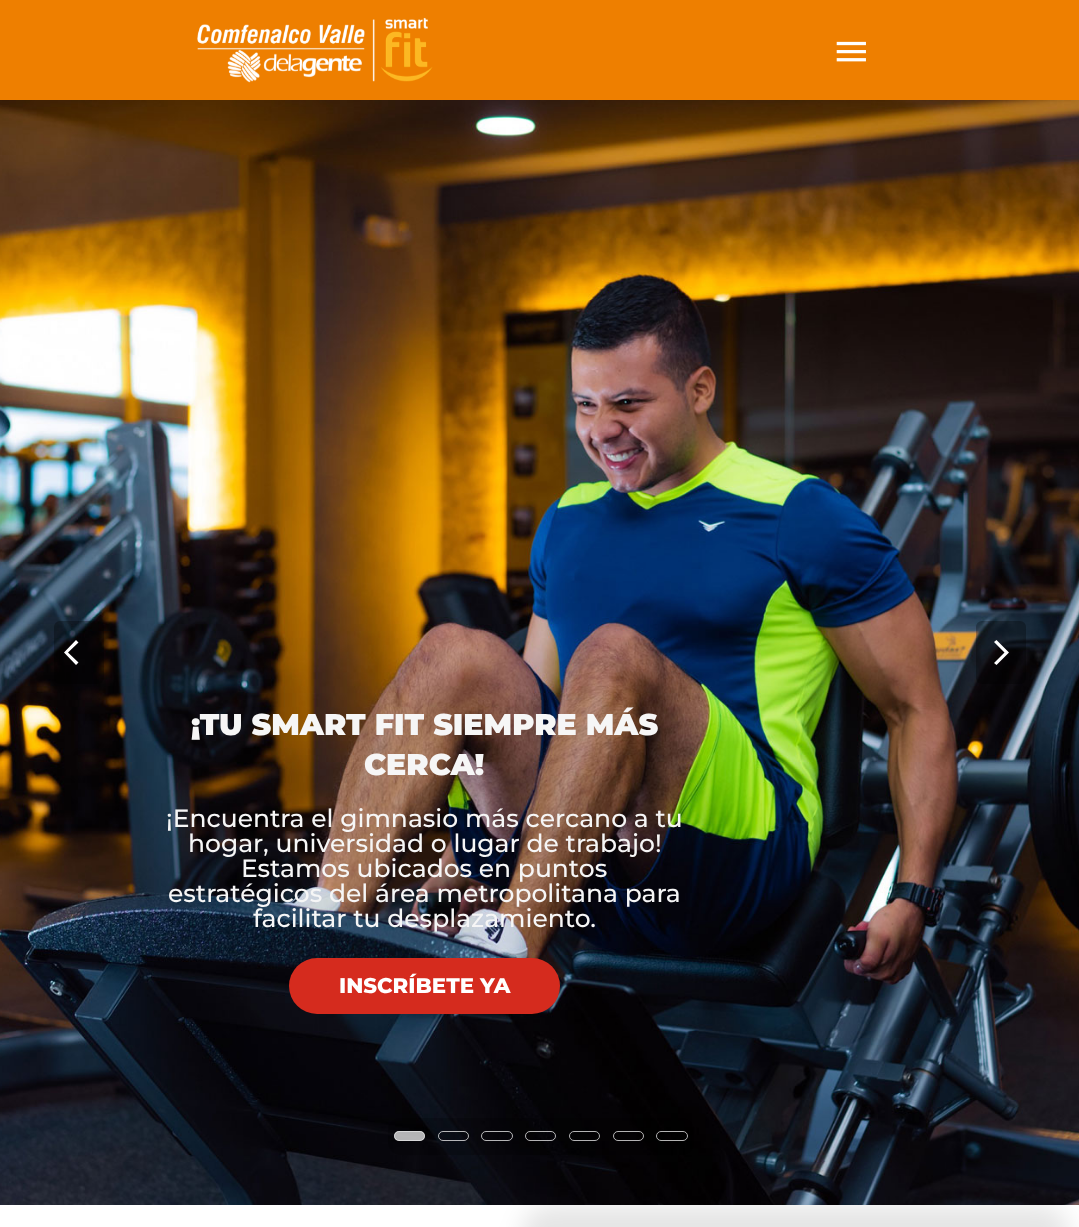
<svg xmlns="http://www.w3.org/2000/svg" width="1079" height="1227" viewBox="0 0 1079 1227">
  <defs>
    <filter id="blur1" x="-50%" y="-200%" width="200%" height="500%"><feGaussianBlur stdDeviation="12.5"/></filter>
  </defs>
  <rect width="100%" height="100%" fill="#ffffff"/>
  <rect x="0" y="0" width="1079" height="100" fill="#ee7f00"/>
  <image x="197" y="17" width="236" height="66" href="img1.png"/>
  <image x="836" y="41" width="30" height="21" href="img2.png"/>
  <rect x="521" y="1205" width="549" height="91" rx="31" fill="#000000" fill-opacity="0.1" filter="url(#blur1)"/>
  <image x="0" y="100" width="1079" height="1105" href="img3.png"/>
  <rect x="54" y="621" width="50" height="63" rx="6" fill="#000000" fill-opacity="0.3"/>
  <path d="M78.5 642.5L68 652.5L78.5 662.5L76 665L64 652.5L76 640Z" fill="#ffffff"/>
  <rect x="976" y="621" width="50" height="63" rx="6" fill="#000000" fill-opacity="0.3"/>
  <path d="M994 663L996.5 665L1009 652.5L996.5 640L994 642L1004.5 652.5Z" fill="#ffffff"/>
  <text x="191" y="735" font-family="Montserrat" font-size="30" font-weight="900" fill="#f6f6f6">¡TU SMART FIT SIEMPRE MÁS</text>
  <text x="364" y="775" font-family="Montserrat" font-size="30" font-weight="900" fill="#f6f6f6">CERCA!</text>
  <text x="166" y="827" font-family="Montserrat" font-size="25" font-weight="500" fill="#f6f6f6">¡Encuentra el gimnasio más cercano a tu</text>
  <text x="188" y="852" font-family="Montserrat" font-size="25" font-weight="500" fill="#f6f6f6">hogar, universidad o lugar de trabajo!</text>
  <text x="241" y="877" font-family="Montserrat" font-size="25" font-weight="500" fill="#f6f6f6">Estamos ubicados en puntos</text>
  <text x="168" y="902" font-family="Montserrat" font-size="25" font-weight="500" fill="#f6f6f6">estratégicos del área metropolitana para</text>
  <text x="253" y="927" font-family="Montserrat" font-size="25" font-weight="500" fill="#f6f6f6">facilitar tu desplazamiento.</text>
  <rect x="289" y="958" width="271" height="56" rx="28" fill="#d52b1e"/>
  <text x="339" y="993" font-family="Montserrat" font-size="21.25" font-weight="800" fill="#ffffff">INSCRÍBETE YA</text>
  <rect x="388" y="1118" width="306" height="37" rx="13" fill="#000000" fill-opacity="0.2"/>
  <rect x="394" y="1131" width="31" height="10" rx="5" fill="#ffffff" fill-opacity="0.7"/>
  <rect x="394.5" y="1131.5" width="30" height="9" rx="4.5" fill="none" stroke="#ffffff" stroke-opacity="0.49"/>
  <rect x="438.5" y="1131.5" width="30" height="9" rx="4.5" fill="none" stroke="#ffffff" stroke-opacity="0.7"/>
  <rect x="481.5" y="1131.5" width="31" height="9" rx="4.5" fill="none" stroke="#ffffff" stroke-opacity="0.7"/>
  <rect x="525.5" y="1131.5" width="30" height="9" rx="4.5" fill="none" stroke="#ffffff" stroke-opacity="0.7"/>
  <rect x="569.5" y="1131.5" width="30" height="9" rx="4.5" fill="none" stroke="#b3b3b4"/>
  <rect x="613.5" y="1131.5" width="30" height="9" rx="4.5" fill="none" stroke="#ffffff" stroke-opacity="0.7"/>
  <rect x="656.5" y="1131.5" width="31" height="9" rx="4.5" fill="none" stroke="#b3b3b3"/>
</svg>
